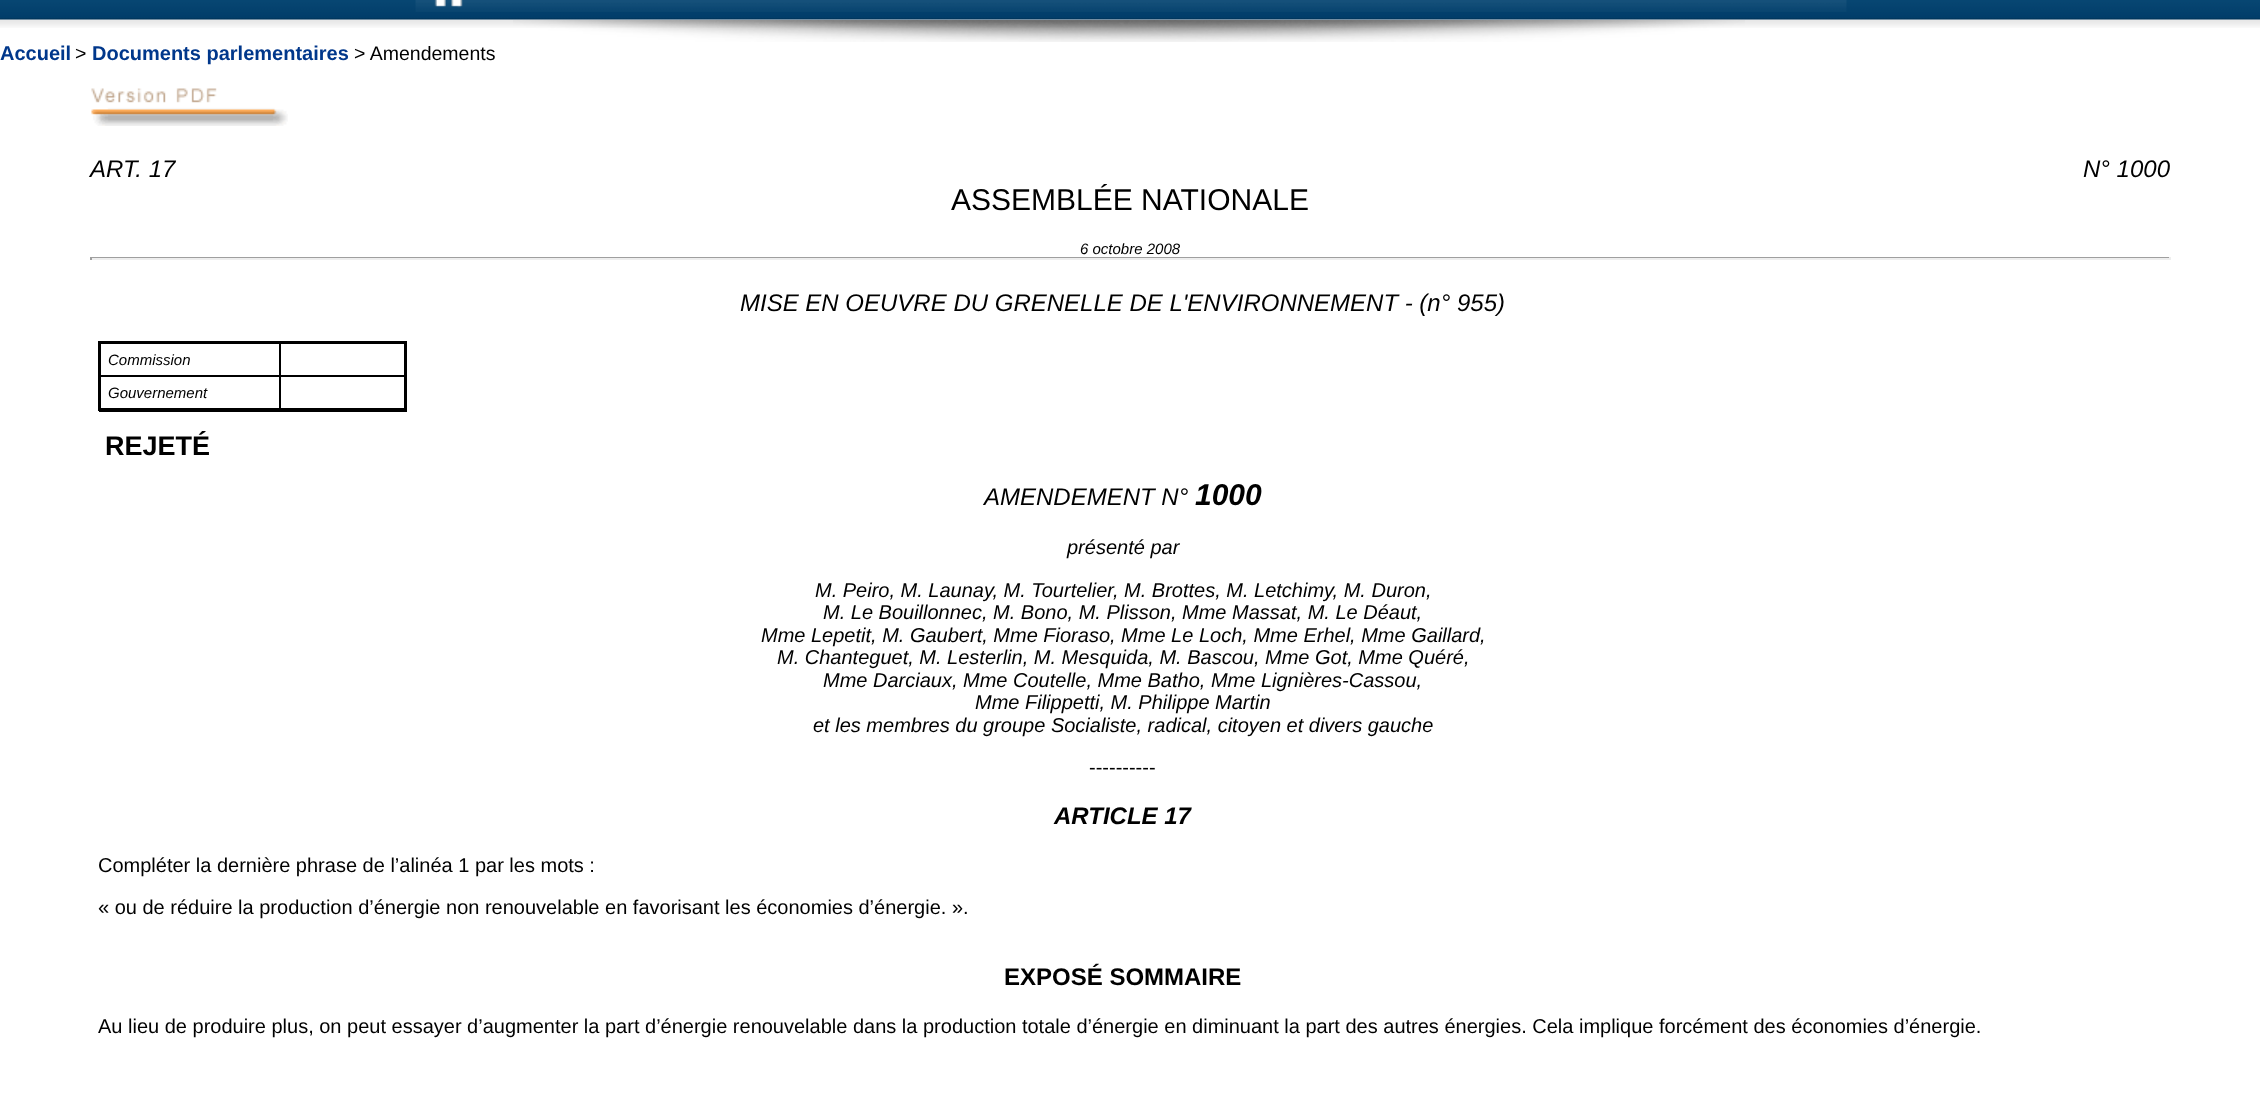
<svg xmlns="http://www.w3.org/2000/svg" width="2260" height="1102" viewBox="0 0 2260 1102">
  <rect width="100%" height="100%" fill="#ffffff"/>
  <image x="0" y="0" width="2260" height="20" href="img1.png"/>
  <image x="415" y="0" width="1432" height="12" href="img2.png"/>
  <image x="434" y="0" width="29" height="8" href="img3.png"/>
  <image x="513" y="20" width="1232" height="22" href="img5.png"/>
  <image x="0" y="18" width="2260" height="10" href="img4.png"/>
  <text x="0" y="60" font-family="Liberation Sans" font-size="20" font-weight="bold" fill="#00378b">Accueil</text>
  <text x="75" y="60" font-family="Liberation Sans" font-size="19.5" fill="#000000">&gt;</text>
  <text x="92" y="60" font-family="Liberation Sans" font-size="20" font-weight="bold" fill="#00378b">Documents parlementaires</text>
  <text x="354" y="60" font-family="Liberation Sans" font-size="19.5" fill="#000000">&gt; Amendements</text>
  <image x="91" y="88" width="197" height="38" href="img6.png"/>
  <text x="90" y="177" font-family="Liberation Sans" font-size="24" font-style="italic" fill="#000000">ART. 17</text>
  <text x="2083" y="177" font-family="Liberation Sans" font-size="24" font-style="italic" fill="#000000">N° 1000</text>
  <text x="951" y="210" font-family="Liberation Sans" font-size="30" fill="#000000">ASSEMBLÉE NATIONALE</text>
  <text x="1080" y="254" font-family="Liberation Sans" font-size="15" font-style="italic" fill="#000000">6 octobre 2008</text>
  <rect x="90" y="257" width="2081" height="1" fill="#9f9f9f"/>
  <rect x="2169" y="257" width="2" height="3" fill="#eeeeee"/>
  <rect x="90" y="258" width="2081" height="2" fill="#eeeeee"/>
  <rect x="90" y="257" width="2" height="3" fill="#9f9f9f"/>
  <text x="740" y="311" font-family="Liberation Sans" font-size="24" font-style="italic" fill="#000000">MISE EN OEUVRE DU GRENELLE DE L'ENVIRONNEMENT - (n° 955)</text>
  <rect x="279" y="375" width="128" height="2" fill="#000000"/>
  <rect x="279" y="375" width="2" height="36" fill="#000000"/>
  <rect x="99" y="375" width="182" height="2" fill="#000000"/>
  <rect x="279" y="342" width="2" height="35" fill="#000000"/>
  <rect x="98" y="341" width="309" height="3" fill="#000000"/>
  <rect x="404" y="341" width="3" height="70" fill="#000000"/>
  <rect x="98" y="408" width="309" height="3" fill="#000000"/>
  <rect x="98" y="341" width="3" height="70" fill="#000000"/>
  <text x="108" y="365" font-family="Liberation Sans" font-size="15" font-style="italic" fill="#000000">Commission</text>
  <rect x="99" y="411" width="308" height="1" fill="#000000"/>
  <text x="108" y="398" font-family="Liberation Sans" font-size="15" font-style="italic" fill="#000000">Gouvernement</text>
  <text x="105" y="455" font-family="Liberation Sans" font-size="27" font-weight="bold" fill="#000000">REJETÉ</text>
  <text x="984" y="505" font-family="Liberation Sans" font-size="24" font-style="italic" fill="#000000">AMENDEMENT N°</text>
  <text x="1195" y="505" font-family="Liberation Sans" font-size="30" font-weight="bold" font-style="italic" fill="#000000">1000</text>
  <text x="1067" y="554" font-family="Liberation Sans" font-size="20" font-style="italic" fill="#000000">présenté par</text>
  <text x="815" y="597" font-family="Liberation Sans" font-size="20" font-style="italic" fill="#000000">M. Peiro, M. Launay, M. Tourtelier, M. Brottes, M. Letchimy, M. Duron,</text>
  <text x="823" y="619" font-family="Liberation Sans" font-size="20" font-style="italic" fill="#000000">M. Le Bouillonnec, M. Bono, M. Plisson, Mme Massat, M. Le Déaut,</text>
  <text x="761" y="642" font-family="Liberation Sans" font-size="20" font-style="italic" fill="#000000">Mme Lepetit, M. Gaubert, Mme Fioraso, Mme Le Loch, Mme Erhel, Mme Gaillard,</text>
  <text x="777" y="664" font-family="Liberation Sans" font-size="20" font-style="italic" fill="#000000">M. Chanteguet, M. Lesterlin, M. Mesquida, M. Bascou, Mme Got, Mme Quéré,</text>
  <text x="823" y="687" font-family="Liberation Sans" font-size="20" font-style="italic" fill="#000000">Mme Darciaux, Mme Coutelle, Mme Batho, Mme Lignières-Cassou,</text>
  <text x="975" y="709" font-family="Liberation Sans" font-size="20" font-style="italic" fill="#000000">Mme Filippetti, M. Philippe Martin</text>
  <text x="813" y="732" font-family="Liberation Sans" font-size="20" font-style="italic" fill="#000000">et les membres du groupe Socialiste, radical, citoyen et divers gauche</text>
  <text x="1089" y="774" font-family="Liberation Sans" font-size="20" fill="#000000">----------</text>
  <text x="1054" y="824" font-family="Liberation Sans" font-size="24" font-weight="bold" font-style="italic" fill="#000000">ARTICLE 17</text>
  <text x="98" y="872" font-family="Liberation Sans" font-size="20" fill="#000000">Compléter la dernière phrase de l’alinéa 1 par les mots :</text>
  <text x="98" y="914" font-family="Liberation Sans" font-size="20" fill="#000000">« ou de réduire la production d’énergie non renouvelable en favorisant les économies d’énergie. ».</text>
  <text x="1004" y="985" font-family="Liberation Sans" font-size="24" font-weight="bold" fill="#000000">EXPOSÉ SOMMAIRE</text>
  <text x="98" y="1033" font-family="Liberation Sans" font-size="20" fill="#000000">Au lieu de produire plus, on peut essayer d’augmenter la part d’énergie renouvelable dans la production totale d’énergie en diminuant la part des autres énergies. Cela implique forcément des économies d’énergie.</text>
</svg>
